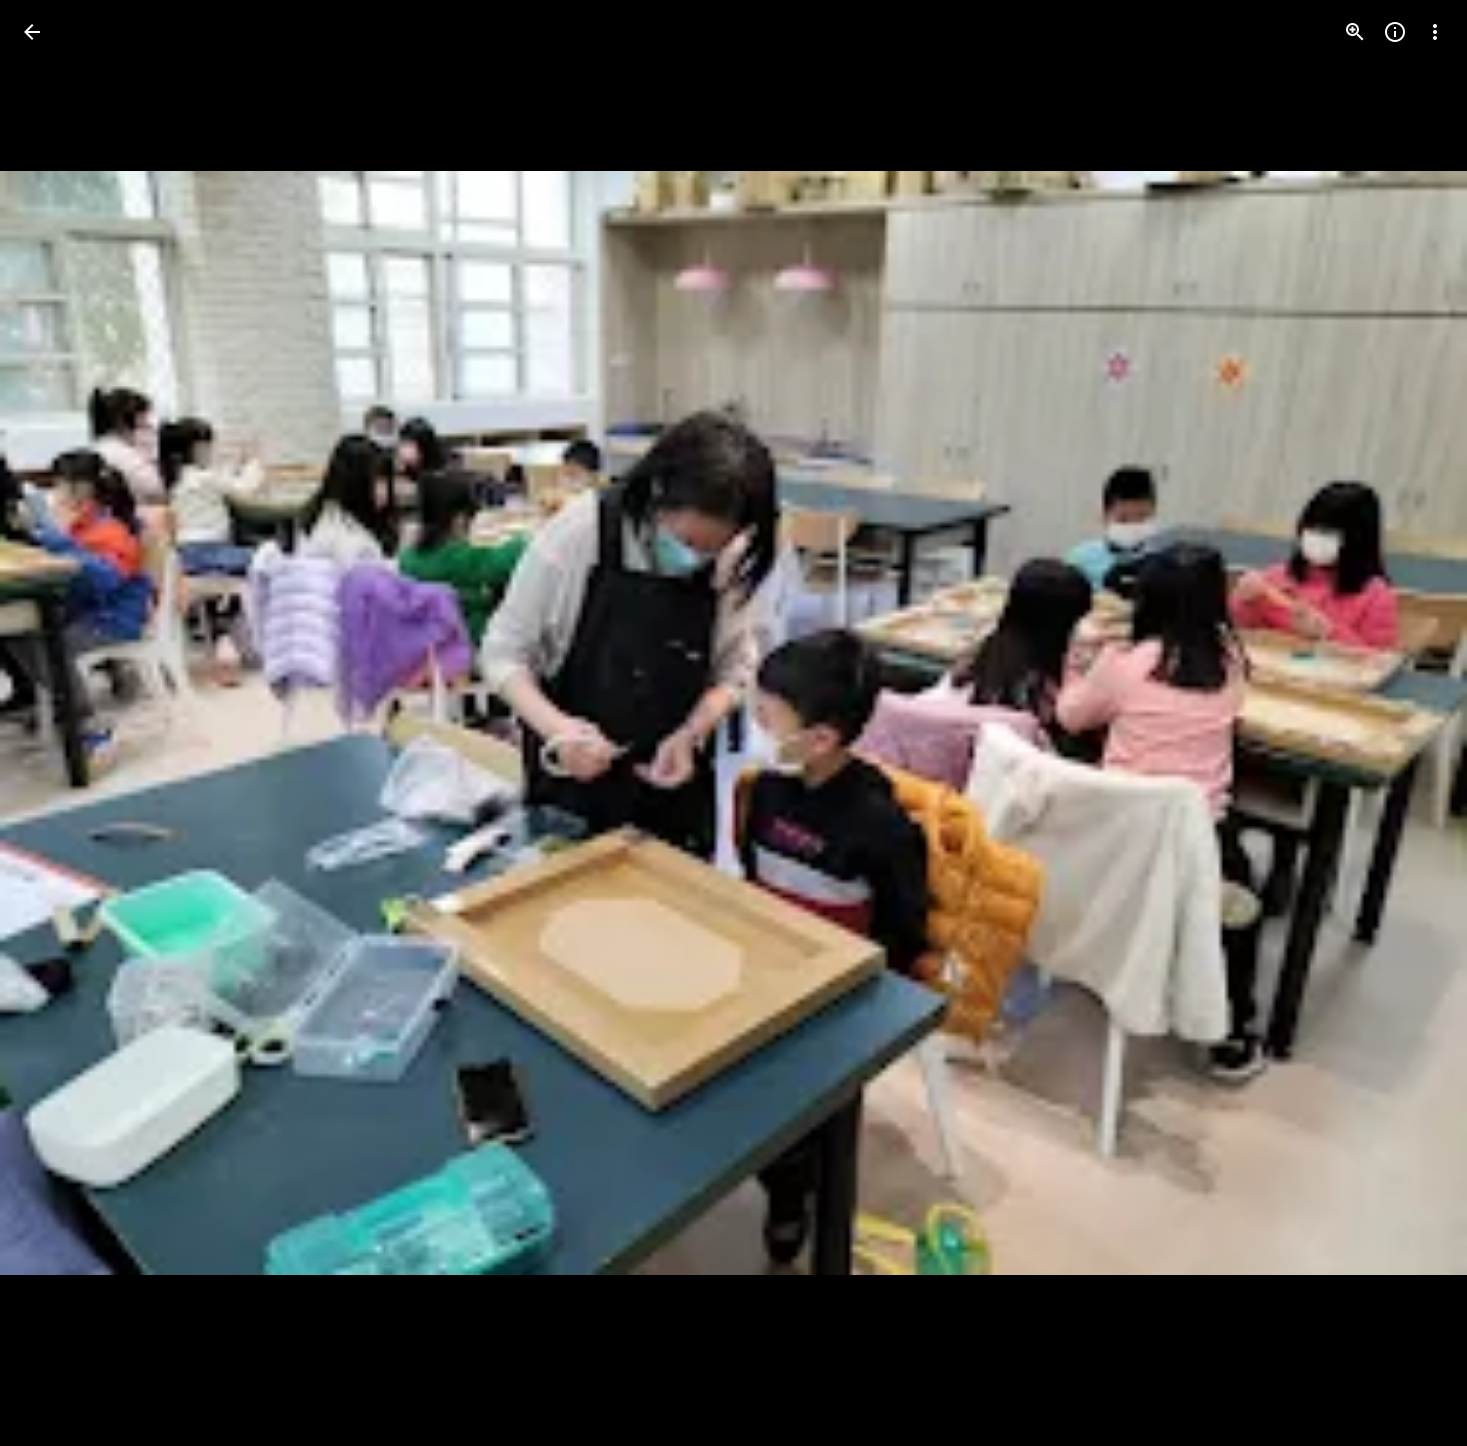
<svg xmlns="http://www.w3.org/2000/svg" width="1467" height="1446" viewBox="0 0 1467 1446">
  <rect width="100%" height="100%" fill="#000000"/>
  <image x="24" y="24" width="16" height="16" href="img1.png"/>
  <image x="1346" y="23" width="18" height="18" href="img2.png"/>
  <image x="1385" y="22" width="20" height="20" href="img3.png"/>
  <image x="1433" y="24" width="4" height="16" href="img4.png"/>
  <image x="0" y="171" width="1467" height="1104" href="img5.png"/>
</svg>
